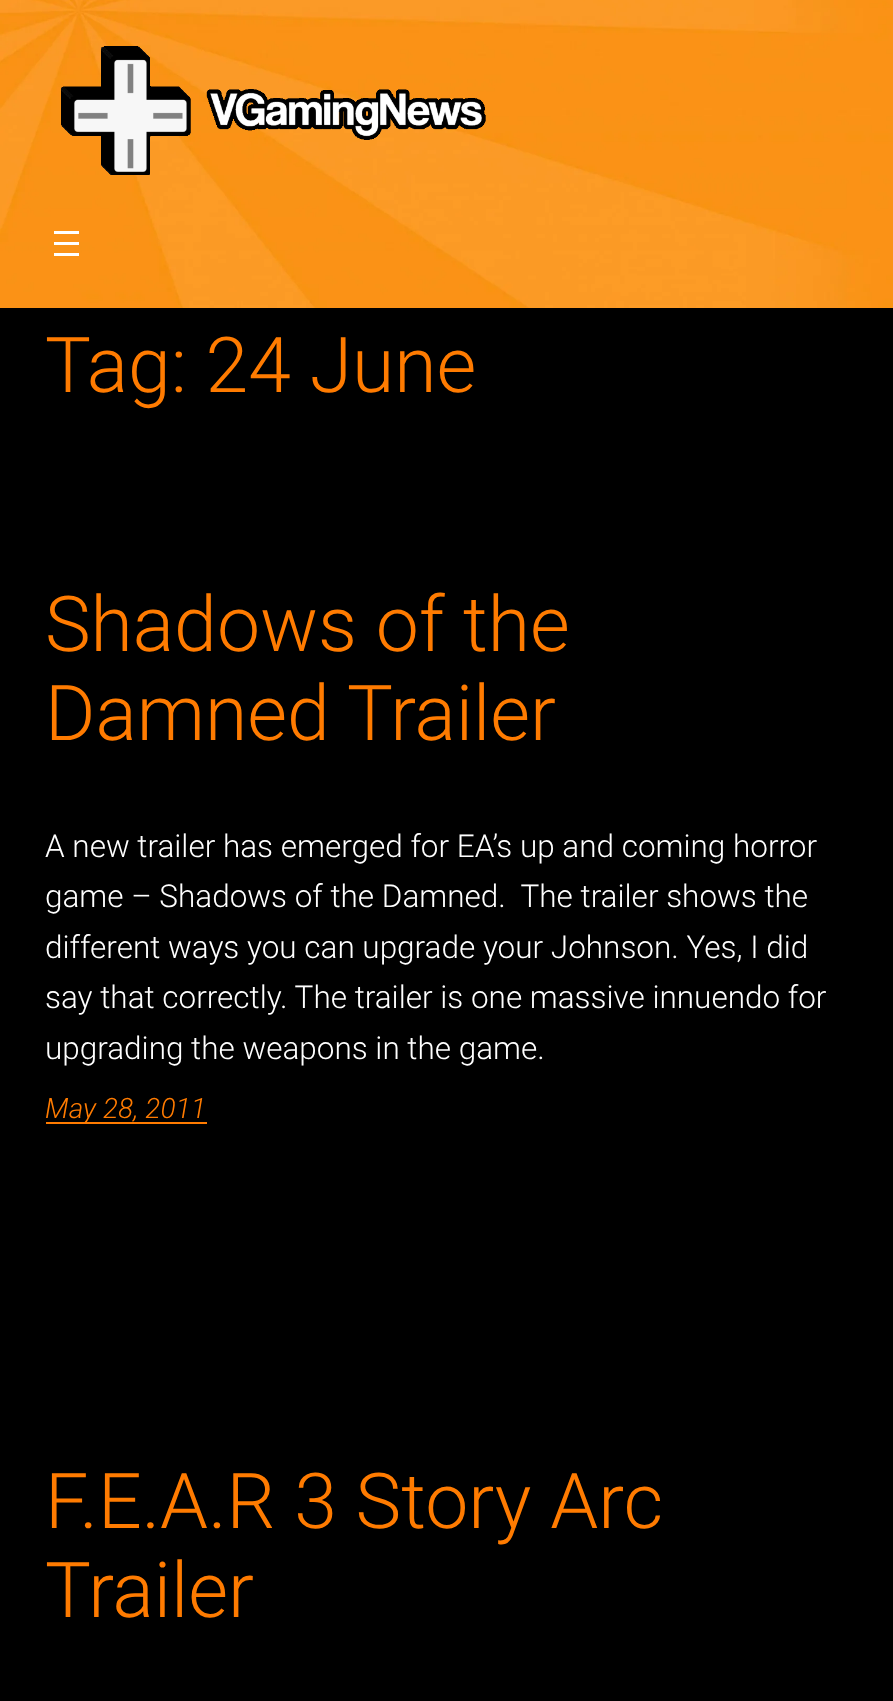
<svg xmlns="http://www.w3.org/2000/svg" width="893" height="1701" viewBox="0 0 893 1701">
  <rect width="100%" height="100%" fill="#000000"/>
  <image x="0" y="0" width="893" height="308" href="img1.png"/>
  <image x="61" y="46" width="425" height="129" href="img2.png"/>
  <rect x="54" y="231" width="25" height="3" fill="#ffffff"/>
  <rect x="54" y="242" width="25" height="3" fill="#ffffff"/>
  <rect x="54" y="253" width="25" height="3" fill="#ffffff"/>
  <text x="45" y="392" font-family="Roboto" font-size="77" font-weight="300" fill="#ff7b00">Tag: 24 June</text>
  <text x="45" y="651" font-family="Roboto" font-size="77" font-weight="300" fill="#ff7b00">Shadows of the</text>
  <text x="45" y="740" font-family="Roboto" font-size="77" font-weight="300" fill="#ff7b00">Damned Trailer</text>
  <text x="45" y="857" font-family="Roboto" font-size="31.5" font-weight="300" fill="#ffffff">A new trailer has emerged for EA’s up and coming horror</text>
  <text x="45" y="907" font-family="Roboto" font-size="31.5" font-weight="300" fill="#ffffff" xml:space="preserve">game – Shadows of the Damned.  The trailer shows the</text>
  <text x="45" y="958" font-family="Roboto" font-size="31.5" font-weight="300" fill="#ffffff">different ways you can upgrade your Johnson. Yes, I did</text>
  <text x="45" y="1008" font-family="Roboto" font-size="31.5" font-weight="300" fill="#ffffff">say that correctly. The trailer is one massive innuendo for</text>
  <text x="45" y="1059" font-family="Roboto" font-size="31.5" font-weight="300" fill="#ffffff">upgrading the weapons in the game.</text>
  <rect x="46" y="1122" width="161" height="2" fill="#ff7b00"/>
  <text x="45" y="1118" font-family="Roboto" font-size="28" font-weight="300" font-style="italic" fill="#ff7b00">May 28, 2011</text>
  <text x="45" y="1528" font-family="Roboto" font-size="77" font-weight="300" fill="#ff7b00">F.E.A.R 3 Story Arc</text>
  <text x="45" y="1617" font-family="Roboto" font-size="77" font-weight="300" fill="#ff7b00">Trailer</text>
</svg>
